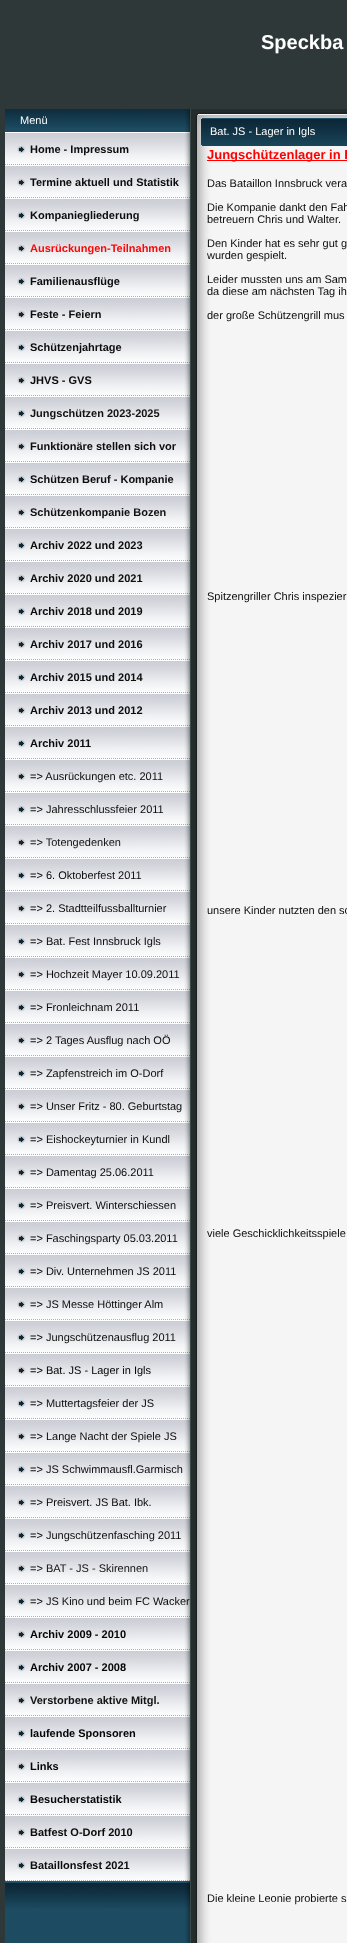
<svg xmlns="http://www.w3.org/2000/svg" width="347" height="1943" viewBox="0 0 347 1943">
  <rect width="100%" height="100%" fill="#2e3839"/>
  <text x="261" y="49" font-family="Liberation Sans" font-size="20" font-weight="bold" fill="#ffffff">Speckba</text>
  <image x="5" y="128" width="185" height="1815" href="img1.png"/>
  <image x="5" y="109" width="185" height="19" href="img2.png"/>
  <text x="20" y="124" font-family="Liberation Sans" font-size="11" fill="#ffffff">Menü</text>
  <image x="5" y="132" width="185" height="33" href="img3.png"/>
  <text x="30" y="153" font-family="Liberation Sans" font-size="11" font-weight="bold" fill="#0c0c0c">Home - Impressum</text>
  <image x="5" y="165" width="185" height="33" href="img3.png"/>
  <text x="30" y="186" font-family="Liberation Sans" font-size="11" font-weight="bold" fill="#0c0c0c">Termine aktuell und Statistik</text>
  <image x="5" y="198" width="185" height="33" href="img3.png"/>
  <text x="30" y="219" font-family="Liberation Sans" font-size="11" font-weight="bold" fill="#0c0c0c">Kompaniegliederung</text>
  <image x="5" y="231" width="185" height="33" href="img3.png"/>
  <text x="30" y="252" font-family="Liberation Sans" font-size="11" font-weight="bold" fill="#fc0707">Ausrückungen-Teilnahmen</text>
  <image x="5" y="264" width="185" height="33" href="img3.png"/>
  <text x="30" y="285" font-family="Liberation Sans" font-size="11" font-weight="bold" fill="#0c0c0c">Familienausflüge</text>
  <image x="5" y="297" width="185" height="33" href="img3.png"/>
  <text x="30" y="318" font-family="Liberation Sans" font-size="11" font-weight="bold" fill="#0c0c0c">Feste - Feiern</text>
  <image x="5" y="330" width="185" height="33" href="img3.png"/>
  <text x="30" y="351" font-family="Liberation Sans" font-size="11" font-weight="bold" fill="#0c0c0c">Schützenjahrtage</text>
  <image x="5" y="363" width="185" height="33" href="img3.png"/>
  <text x="30" y="384" font-family="Liberation Sans" font-size="11" font-weight="bold" fill="#0c0c0c">JHVS - GVS</text>
  <image x="5" y="396" width="185" height="33" href="img3.png"/>
  <text x="30" y="417" font-family="Liberation Sans" font-size="11" font-weight="bold" fill="#131212">Jungschützen 2023-2025</text>
  <image x="5" y="429" width="185" height="33" href="img3.png"/>
  <text x="30" y="450" font-family="Liberation Sans" font-size="11" font-weight="bold" fill="#0c0c0c">Funktionäre stellen sich vor</text>
  <image x="5" y="462" width="185" height="33" href="img3.png"/>
  <text x="30" y="483" font-family="Liberation Sans" font-size="11" font-weight="bold" fill="#0c0c0c">Schützen Beruf - Kompanie</text>
  <image x="5" y="495" width="185" height="33" href="img3.png"/>
  <text x="30" y="516" font-family="Liberation Sans" font-size="11" font-weight="bold" fill="#131212">Schützenkompanie Bozen</text>
  <image x="5" y="528" width="185" height="33" href="img3.png"/>
  <text x="30" y="549" font-family="Liberation Sans" font-size="11" font-weight="bold" fill="#0c0c0c">Archiv 2022 und 2023</text>
  <image x="5" y="561" width="185" height="33" href="img3.png"/>
  <text x="30" y="582" font-family="Liberation Sans" font-size="11" font-weight="bold" fill="#0c0c0c">Archiv 2020 und 2021</text>
  <image x="5" y="594" width="185" height="33" href="img3.png"/>
  <text x="30" y="615" font-family="Liberation Sans" font-size="11" font-weight="bold" fill="#0c0c0c">Archiv 2018 und 2019</text>
  <image x="5" y="627" width="185" height="33" href="img3.png"/>
  <text x="30" y="648" font-family="Liberation Sans" font-size="11" font-weight="bold" fill="#0c0c0c">Archiv 2017 und 2016</text>
  <image x="5" y="660" width="185" height="33" href="img3.png"/>
  <text x="30" y="681" font-family="Liberation Sans" font-size="11" font-weight="bold" fill="#0c0c0c">Archiv 2015 und 2014</text>
  <image x="5" y="693" width="185" height="33" href="img3.png"/>
  <text x="30" y="714" font-family="Liberation Sans" font-size="11" font-weight="bold" fill="#0c0c0c">Archiv 2013 und 2012</text>
  <image x="5" y="726" width="185" height="33" href="img3.png"/>
  <text x="30" y="747" font-family="Liberation Sans" font-size="11" font-weight="bold" fill="#0c0c0c">Archiv 2011</text>
  <image x="5" y="759" width="185" height="33" href="img3.png"/>
  <text x="30" y="780" font-family="Liberation Sans" font-size="11" fill="#0c0c0c">=&gt; Ausrückungen etc. 2011</text>
  <image x="5" y="792" width="185" height="33" href="img3.png"/>
  <text x="30" y="813" font-family="Liberation Sans" font-size="11" fill="#0c0c0c">=&gt; Jahresschlussfeier 2011</text>
  <image x="5" y="825" width="185" height="33" href="img3.png"/>
  <text x="30" y="846" font-family="Liberation Sans" font-size="11" fill="#131212">=&gt; Totengedenken</text>
  <image x="5" y="858" width="185" height="33" href="img3.png"/>
  <text x="30" y="879" font-family="Liberation Sans" font-size="11" fill="#0c0c0c">=&gt; 6. Oktoberfest 2011</text>
  <image x="5" y="891" width="185" height="33" href="img3.png"/>
  <text x="30" y="912" font-family="Liberation Sans" font-size="11" fill="#0c0c0c">=&gt; 2. Stadtteilfussballturnier</text>
  <image x="5" y="924" width="185" height="33" href="img3.png"/>
  <text x="30" y="945" font-family="Liberation Sans" font-size="11" fill="#0c0c0c">=&gt; Bat. Fest Innsbruck Igls</text>
  <image x="5" y="957" width="185" height="33" href="img3.png"/>
  <text x="30" y="978" font-family="Liberation Sans" font-size="11" fill="#0c0c0c">=&gt; Hochzeit Mayer 10.09.2011</text>
  <image x="5" y="990" width="185" height="33" href="img3.png"/>
  <text x="30" y="1011" font-family="Liberation Sans" font-size="11" fill="#0c0c0c">=&gt; Fronleichnam 2011</text>
  <image x="5" y="1023" width="185" height="33" href="img3.png"/>
  <text x="30" y="1044" font-family="Liberation Sans" font-size="11" fill="#0c0c0c">=&gt; 2 Tages Ausflug nach OÖ</text>
  <image x="5" y="1056" width="185" height="33" href="img3.png"/>
  <text x="30" y="1077" font-family="Liberation Sans" font-size="11" fill="#0c0c0c">=&gt; Zapfenstreich im O-Dorf</text>
  <image x="5" y="1089" width="185" height="33" href="img3.png"/>
  <text x="30" y="1110" font-family="Liberation Sans" font-size="11" fill="#0c0c0c">=&gt; Unser Fritz - 80. Geburtstag</text>
  <image x="5" y="1122" width="185" height="33" href="img3.png"/>
  <text x="30" y="1143" font-family="Liberation Sans" font-size="11" fill="#0c0c0c">=&gt; Eishockeyturnier in Kundl</text>
  <image x="5" y="1155" width="185" height="33" href="img3.png"/>
  <text x="30" y="1176" font-family="Liberation Sans" font-size="11" fill="#0c0c0c">=&gt; Damentag 25.06.2011</text>
  <image x="5" y="1188" width="185" height="33" href="img3.png"/>
  <text x="30" y="1209" font-family="Liberation Sans" font-size="11" fill="#0c0c0c">=&gt; Preisvert. Winterschiessen</text>
  <image x="5" y="1221" width="185" height="33" href="img3.png"/>
  <text x="30" y="1242" font-family="Liberation Sans" font-size="11" fill="#0c0c0c">=&gt; Faschingsparty 05.03.2011</text>
  <image x="5" y="1254" width="185" height="33" href="img3.png"/>
  <text x="30" y="1275" font-family="Liberation Sans" font-size="11" fill="#0c0c0c">=&gt; Div. Unternehmen JS 2011</text>
  <image x="5" y="1287" width="185" height="33" href="img3.png"/>
  <text x="30" y="1308" font-family="Liberation Sans" font-size="11" fill="#0c0c0c">=&gt; JS Messe Höttinger Alm</text>
  <image x="5" y="1320" width="185" height="33" href="img3.png"/>
  <text x="30" y="1341" font-family="Liberation Sans" font-size="11" fill="#0c0c0c">=&gt; Jungschützenausflug 2011</text>
  <image x="5" y="1353" width="185" height="33" href="img3.png"/>
  <text x="30" y="1374" font-family="Liberation Sans" font-size="11" fill="#050505">=&gt; Bat. JS - Lager in Igls</text>
  <image x="5" y="1386" width="185" height="33" href="img3.png"/>
  <text x="30" y="1407" font-family="Liberation Sans" font-size="11" fill="#0c0c0c">=&gt; Muttertagsfeier der JS</text>
  <image x="5" y="1419" width="185" height="33" href="img3.png"/>
  <text x="30" y="1440" font-family="Liberation Sans" font-size="11" fill="#0c0c0c">=&gt; Lange Nacht der Spiele JS</text>
  <image x="5" y="1452" width="185" height="33" href="img3.png"/>
  <text x="30" y="1473" font-family="Liberation Sans" font-size="11" fill="#0c0c0c">=&gt; JS Schwimmausfl.Garmisch</text>
  <image x="5" y="1485" width="185" height="33" href="img3.png"/>
  <text x="30" y="1506" font-family="Liberation Sans" font-size="11" fill="#0c0c0c">=&gt; Preisvert. JS Bat. Ibk.</text>
  <image x="5" y="1518" width="185" height="33" href="img3.png"/>
  <text x="30" y="1539" font-family="Liberation Sans" font-size="11" fill="#0c0c0c">=&gt; Jungschützenfasching 2011</text>
  <image x="5" y="1551" width="185" height="33" href="img3.png"/>
  <text x="30" y="1572" font-family="Liberation Sans" font-size="11" fill="#131212">=&gt; BAT - JS - Skirennen</text>
  <image x="5" y="1584" width="185" height="33" href="img3.png"/>
  <text x="30" y="1605" font-family="Liberation Sans" font-size="11" fill="#0c0c0c">=&gt; JS Kino und beim FC Wacker</text>
  <image x="5" y="1617" width="185" height="33" href="img3.png"/>
  <text x="30" y="1638" font-family="Liberation Sans" font-size="11" font-weight="bold" fill="#050505">Archiv 2009 - 2010</text>
  <image x="5" y="1650" width="185" height="33" href="img3.png"/>
  <text x="30" y="1671" font-family="Liberation Sans" font-size="11" font-weight="bold" fill="#050505">Archiv 2007 - 2008</text>
  <image x="5" y="1683" width="185" height="33" href="img3.png"/>
  <text x="30" y="1704" font-family="Liberation Sans" font-size="11" font-weight="bold" fill="#131212">Verstorbene aktive Mitgl.</text>
  <image x="5" y="1716" width="185" height="33" href="img3.png"/>
  <text x="30" y="1737" font-family="Liberation Sans" font-size="11" font-weight="bold" fill="#050505">laufende Sponsoren</text>
  <image x="5" y="1749" width="185" height="33" href="img3.png"/>
  <text x="30" y="1770" font-family="Liberation Sans" font-size="11" font-weight="bold" fill="#050505">Links</text>
  <image x="5" y="1782" width="185" height="33" href="img3.png"/>
  <text x="30" y="1803" font-family="Liberation Sans" font-size="11" font-weight="bold" fill="#050505">Besucherstatistik</text>
  <image x="5" y="1815" width="185" height="33" href="img3.png"/>
  <text x="30" y="1836" font-family="Liberation Sans" font-size="11" font-weight="bold" fill="#0c0c0c">Batfest O-Dorf 2010</text>
  <image x="5" y="1848" width="185" height="33" href="img3.png"/>
  <text x="30" y="1869" font-family="Liberation Sans" font-size="11" font-weight="bold" fill="#0c0c0c">Bataillonsfest 2021</text>
  <image x="5" y="1881" width="185" height="27" href="img4.png"/>
  <image x="190" y="109" width="157" height="38" href="img5.png"/>
  <text x="210" y="135" font-family="Liberation Sans" font-size="11" fill="#ffffff">Bat. JS - Lager in Igls</text>
  <image x="190" y="147" width="157" height="1796" href="img6.png"/>
  <rect x="207" y="160" width="140" height="1" fill="#ff0000"/>
  <text x="207" y="159" font-family="Liberation Sans" font-size="13" font-weight="bold" fill="#ff0000">Jungschützenlager in I</text>
  <text x="207" y="187" font-family="Liberation Sans" font-size="11" fill="#0c0c0c">Das Bataillon Innsbruck vera</text>
  <text x="207" y="211" font-family="Liberation Sans" font-size="11" fill="#0c0c0c">Die Kompanie dankt den Fah</text>
  <text x="207" y="223" font-family="Liberation Sans" font-size="11" fill="#0c0c0c">betreuern Chris und Walter.</text>
  <text x="207" y="247" font-family="Liberation Sans" font-size="11" fill="#0c0c0c">Den Kinder hat es sehr gut g</text>
  <text x="207" y="259" font-family="Liberation Sans" font-size="11" fill="#0c0c0c">wurden gespielt.</text>
  <text x="207" y="283" font-family="Liberation Sans" font-size="11" fill="#0c0c0c">Leider mussten uns am Sam</text>
  <text x="207" y="295" font-family="Liberation Sans" font-size="11" fill="#0c0c0c">da diese am nächsten Tag ih</text>
  <text x="207" y="319" font-family="Liberation Sans" font-size="11" fill="#0c0c0c">der große Schützengrill mus</text>
  <text x="207" y="600" font-family="Liberation Sans" font-size="11" fill="#0c0c0c">Spitzengriller Chris inspezier</text>
  <text x="207" y="914" font-family="Liberation Sans" font-size="11" fill="#0c0c0c">unsere Kinder nutzten den sc</text>
  <text x="207" y="1237" font-family="Liberation Sans" font-size="11" fill="#0c0c0c">viele Geschicklichkeitsspiele</text>
  <text x="207" y="1902" font-family="Liberation Sans" font-size="11" fill="#0c0c0c">Die kleine Leonie probierte s</text>
</svg>
